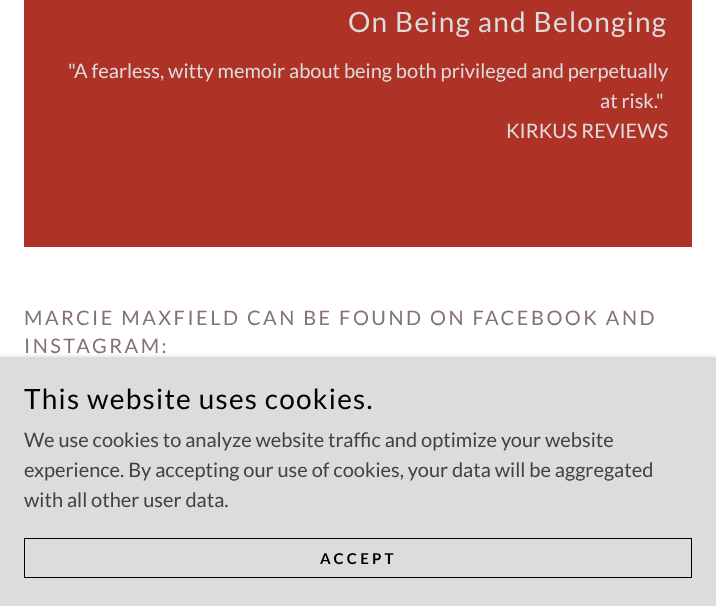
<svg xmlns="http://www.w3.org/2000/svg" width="716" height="606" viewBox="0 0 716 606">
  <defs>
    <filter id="blur1" x="-50%" y="-200%" width="200%" height="500%"><feGaussianBlur stdDeviation="3"/></filter>
  </defs>
  <rect width="100%" height="100%" fill="#ffffff"/>
  <rect x="24" y="0" width="668" height="247" fill="#af3227"/>
  <text x="348" y="32" font-family="Lato" font-size="28" letter-spacing="1.25" fill="#dcdcdc">On Being and Belonging</text>
  <text x="68" y="78" font-family="Lato" font-size="20" fill="#dcdcdc">"A fearless, witty memoir about being both privileged and perpetually</text>
  <text x="600" y="108" font-family="Lato" font-size="20" fill="#dcdcdc">at risk."</text>
  <text x="506" y="138" font-family="Lato" font-size="20" fill="#dcdcdc">KIRKUS REVIEWS</text>
  <text x="24" y="325" font-family="Lato" font-size="20" letter-spacing="2.5" fill="#857272">MARCIE MAXFIELD CAN BE FOUND ON FACEBOOK AND</text>
  <text x="24" y="353" font-family="Lato" font-size="20" letter-spacing="2.5" fill="#857272">INSTAGRAM:</text>
  <rect x="0" y="359" width="716" height="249" fill="#000000" fill-opacity="0.3" filter="url(#blur1)"/>
  <rect x="0" y="357" width="716" height="249" fill="#dcdcdc"/>
  <text x="24" y="409" font-family="Lato" font-size="28" letter-spacing="1.25" fill="#000000">This website uses cookies.</text>
  <text x="24" y="447" font-family="Lato" font-size="20" fill="#424242">We use cookies to analyze website traffic and optimize your website</text>
  <text x="24" y="477" font-family="Lato" font-size="20" fill="#424242">experience. By accepting our use of cookies, your data will be aggregated</text>
  <text x="24" y="507" font-family="Lato" font-size="20" fill="#424242">with all other user data.</text>
  <rect x="24.5" y="538.5" width="667" height="39" fill="none" stroke="#000000"/>
  <text x="320" y="564" font-family="Lato" font-size="15" font-weight="bold" letter-spacing="3.25" fill="#000000">ACCEPT</text>
</svg>
